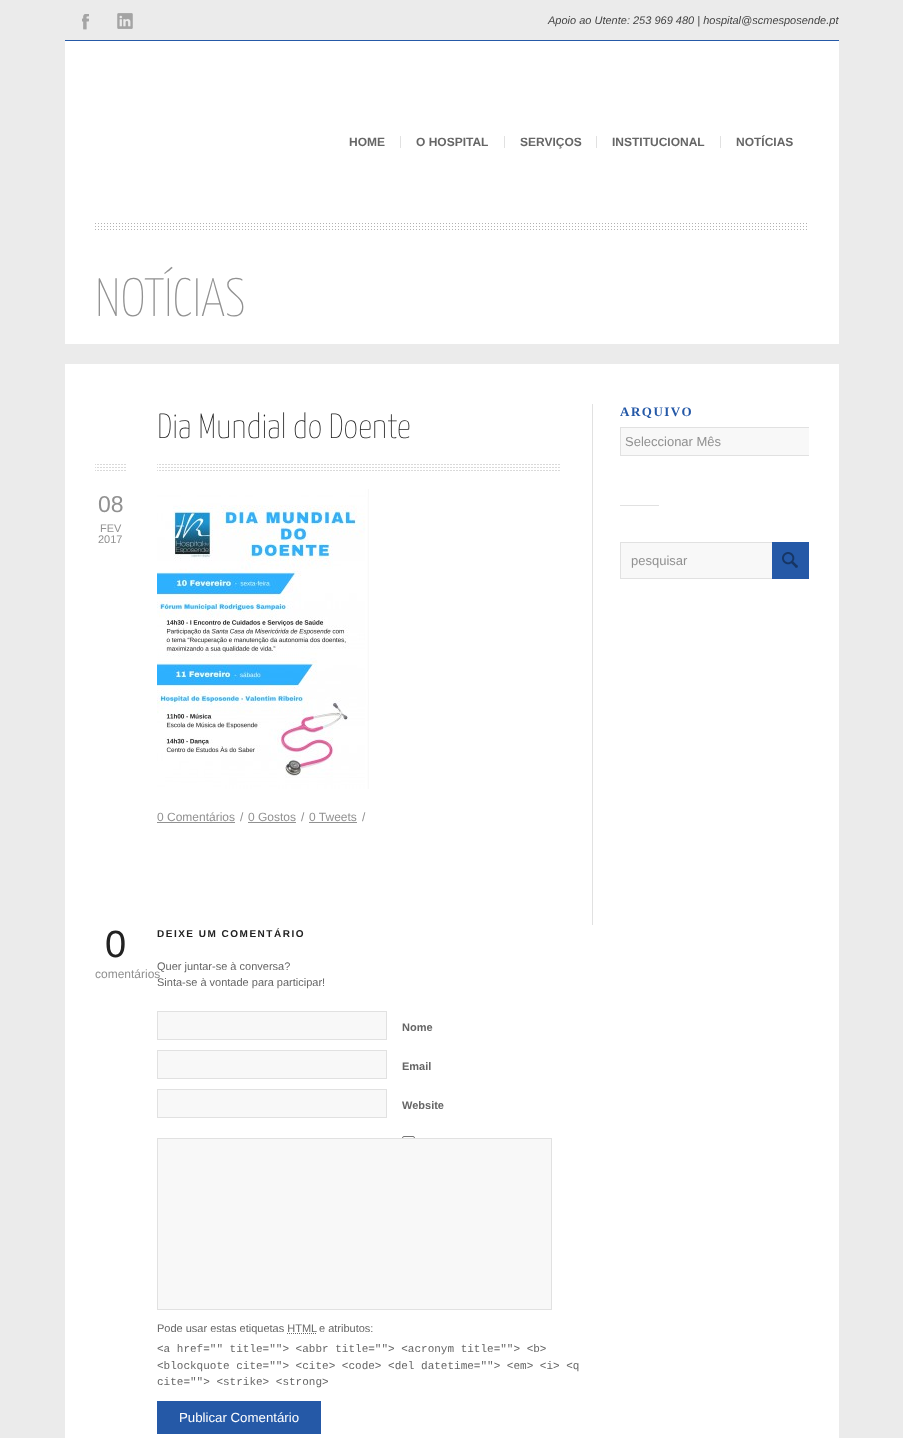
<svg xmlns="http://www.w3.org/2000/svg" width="903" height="1438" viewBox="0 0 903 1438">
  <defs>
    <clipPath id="clip1"><rect x="620" y="404" width="189" height="102"/></clipPath>
    <clipPath id="clip2"><rect x="620" y="506" width="189" height="103"/></clipPath>
  </defs>
  <rect width="100%" height="100%" fill="#ebebeb"/>
  <image x="82" y="14" width="7" height="16" href="img1.png"/>
  <image x="117" y="13" width="16" height="16" href="img2.png"/>
  <text x="548" y="24" font-family="Liberation Sans" font-size="11" font-style="italic" fill="#444444">Apoio ao Utente: 253 969 480 | hospital@scmesposende.pt</text>
  <rect x="65" y="40" width="774" height="1" fill="#2559a7"/>
  <rect x="65" y="41" width="774" height="303" fill="#ffffff"/>
  <image x="95" y="223" width="712" height="7" href="img3.png"/>
  <text x="349" y="146" font-family="Liberation Sans" font-size="12" font-weight="bold" fill="#666666">HOME</text>
  <rect x="400" y="136" width="1" height="12" fill="#e1e1e1"/>
  <text x="416" y="146" font-family="Liberation Sans" font-size="12" font-weight="bold" fill="#666666">O HOSPITAL</text>
  <rect x="504" y="136" width="1" height="12" fill="#e1e1e1"/>
  <text x="520" y="146" font-family="Liberation Sans" font-size="12" font-weight="bold" fill="#666666">SERVIÇOS</text>
  <rect x="596" y="136" width="1" height="12" fill="#e1e1e1"/>
  <text x="612" y="146" font-family="Liberation Sans" font-size="12" font-weight="bold" fill="#666666">INSTITUCIONAL</text>
  <rect x="720" y="136" width="1" height="12" fill="#e1e1e1"/>
  <text x="736" y="146" font-family="Liberation Sans" font-size="12" font-weight="bold" fill="#666666">NOTÍCIAS</text>
  <text x="95" y="316" font-family="Yanone Kaffeesatz" font-size="54" font-weight="200" fill="#919191">NOTÍCIAS</text>
  <rect x="65" y="364" width="774" height="1074" fill="#ffffff"/>
  <text x="157" y="438" font-family="Yanone Kaffeesatz" font-size="35" font-weight="200" fill="#222222">Dia Mundial do Doente</text>
  <image x="95" y="464" width="31" height="7" href="img4.png"/>
  <text x="98" y="512" font-family="Liberation Sans" font-size="23" fill="#919191">08</text>
  <text x="100" y="532" font-family="Liberation Sans" font-size="11" fill="#919191">FEV</text>
  <text x="98" y="543" font-family="Liberation Sans" font-size="11" fill="#919191">2017</text>
  <image x="157" y="464" width="403" height="7" href="img5.png"/>
  <image x="157" y="489" width="212" height="300" href="img6.png"/>
  <text x="157" y="821" font-family="Liberation Sans" font-size="12" fill="#919191">0 Comentários</text>
  <rect x="157" y="822" width="78" height="1" fill="#919191"/>
  <text x="240" y="821" font-family="Liberation Sans" font-size="12" fill="#919191">/</text>
  <text x="248" y="821" font-family="Liberation Sans" font-size="12" fill="#919191">0 Gostos</text>
  <rect x="248" y="822" width="48" height="1" fill="#919191"/>
  <text x="301" y="821" font-family="Liberation Sans" font-size="12" fill="#919191">/</text>
  <text x="309" y="821" font-family="Liberation Sans" font-size="12" fill="#919191">0 Tweets</text>
  <rect x="309" y="822" width="48" height="1" fill="#919191"/>
  <text x="362" y="821" font-family="Liberation Sans" font-size="12" fill="#919191">/</text>
  <text x="105" y="957" font-family="Liberation Sans" font-size="38" fill="#222222">0</text>
  <text x="95" y="978" font-family="Liberation Sans" font-size="12" fill="#919191">comentários</text>
  <text x="157" y="937" font-family="Liberation Sans" font-size="10" font-weight="bold" letter-spacing="1.5" fill="#222222">DEIXE UM COMENTÁRIO</text>
  <text x="157" y="970" font-family="Liberation Sans" font-size="11" fill="#666666">Quer juntar-se à conversa?</text>
  <text x="157" y="986" font-family="Liberation Sans" font-size="11" fill="#666666">Sinta-se à vontade para participar!</text>
  <rect x="157.5" y="1011.5" width="229" height="28" fill="#f8f8f8" stroke="#e1e1e1"/>
  <text x="402" y="1031" font-family="Liberation Sans" font-size="11" font-weight="bold" fill="#666666">Nome</text>
  <rect x="157.5" y="1050.5" width="229" height="28" fill="#f8f8f8" stroke="#e1e1e1"/>
  <text x="402" y="1070" font-family="Liberation Sans" font-size="11" font-weight="bold" fill="#666666">Email</text>
  <rect x="157.5" y="1089.5" width="229" height="28" fill="#f8f8f8" stroke="#e1e1e1"/>
  <text x="402" y="1109" font-family="Liberation Sans" font-size="11" font-weight="bold" fill="#666666">Website</text>
  <rect x="402.5" y="1136.5" width="12" height="12" rx="1.5" fill="none" stroke="#767676"/>
  <rect x="157.5" y="1138.5" width="394" height="171" fill="#f8f8f8" stroke="#e1e1e1"/>
  <text x="157" y="1332" font-family="Liberation Sans" font-size="11" fill="#666666">Pode usar estas etiquetas HTML</text>
  <text x="319" y="1332" font-family="Liberation Sans" font-size="11" fill="#666666">e atributos:</text>
  <path d="M287 1333.5H316.5" fill="none" stroke="#666666" stroke-dasharray="1 1"/>
  <text x="157" y="1352" font-family="Liberation Mono" font-size="11" fill="#666666">&lt;a href="" title=""&gt; &lt;abbr title=""&gt; &lt;acronym title=""&gt; &lt;b&gt;</text>
  <text x="157" y="1369" font-family="Liberation Mono" font-size="11" fill="#666666">&lt;blockquote cite=""&gt; &lt;cite&gt; &lt;code&gt; &lt;del datetime=""&gt; &lt;em&gt; &lt;i&gt; &lt;q</text>
  <text x="157" y="1385" font-family="Liberation Mono" font-size="11" fill="#666666">cite=""&gt; &lt;strike&gt; &lt;strong&gt;</text>
  <rect x="157" y="1401" width="164" height="33" fill="#2559a7"/>
  <text x="179" y="1422" font-family="Liberation Sans" font-size="13.25" fill="#ffffff">Publicar Comentário</text>
  <rect x="592" y="404" width="1" height="521" fill="#e1e1e1"/>
  <text x="620" y="416" font-family="Liberation Serif" font-size="13" font-weight="bold" letter-spacing="1.5" fill="#2559a7">ARQUIVO</text>
  <rect x="621" y="428" width="188" height="27" fill="#f8f8f8"/>
  <g clip-path="url(#clip1)">
    <rect x="620.5" y="427.5" width="244" height="28" fill="none" stroke="#e1e1e1"/>
  </g>
  <text x="625" y="446" font-family="Liberation Sans" font-size="13" fill="#919191">Seleccionar Mês</text>
  <rect x="620" y="505" width="39" height="1" fill="#e1e1e1"/>
  <rect x="621" y="543" width="151" height="35" fill="#f8f8f8"/>
  <g clip-path="url(#clip2)">
    <rect x="620.5" y="542.5" width="224" height="36" fill="none" stroke="#e1e1e1"/>
  </g>
  <text x="631" y="565" font-family="Liberation Sans" font-size="13" fill="#919191">pesquisar</text>
  <rect x="772" y="542" width="37" height="37" fill="#2559a7"/>
  <image x="782" y="552" width="16" height="16" href="img7.png"/>
</svg>
